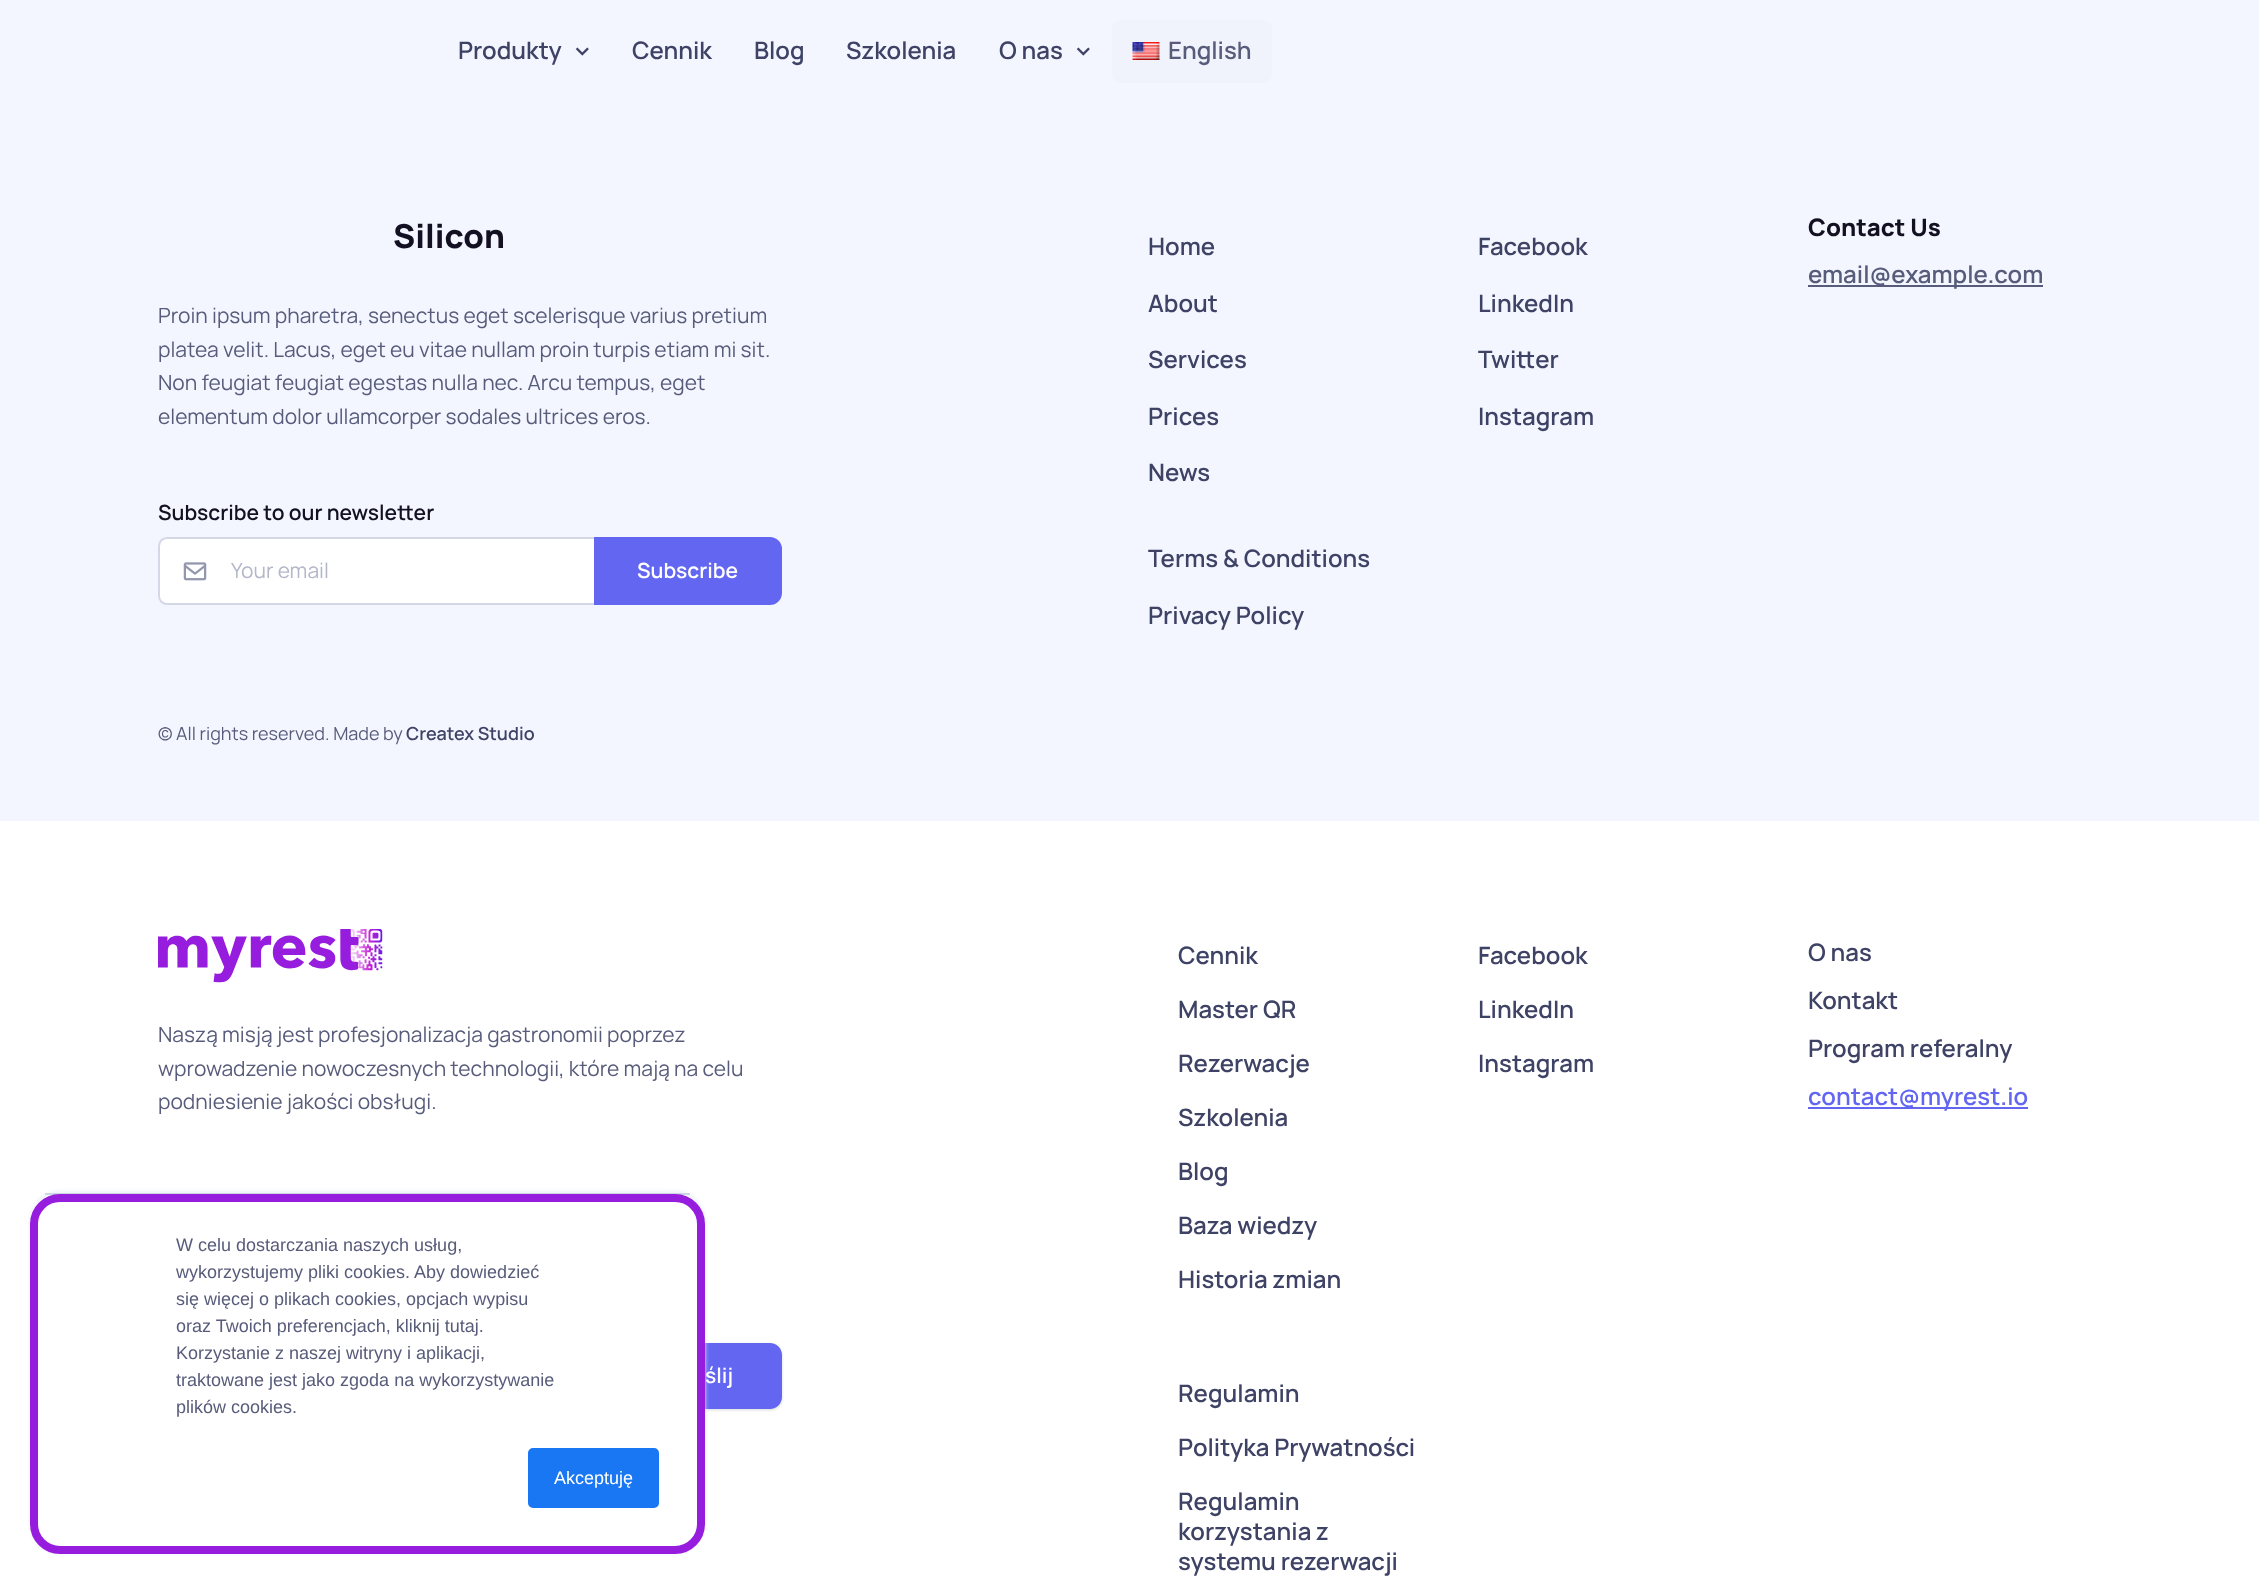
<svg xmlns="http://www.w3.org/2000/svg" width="2259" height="1583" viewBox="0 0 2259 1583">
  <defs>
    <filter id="blur1" x="-50%" y="-200%" width="200%" height="500%"><feGaussianBlur stdDeviation="1.5"/></filter>
    <filter id="blur2" x="-50%" y="-200%" width="200%" height="500%"><feGaussianBlur stdDeviation="2"/></filter>
  </defs>
  <rect width="100%" height="100%" fill="#ffffff"/>
  <rect x="0" y="0" width="2259" height="821" fill="#f3f6ff"/>
  <text x="458" y="59" font-family="Manrope" font-size="24" font-weight="600" fill="#3e4265">Produkty</text>
  <image x="575" y="47" width="14" height="9" href="img1.png"/>
  <text x="632" y="59" font-family="Manrope" font-size="24" font-weight="600" fill="#3e4265">Cennik</text>
  <text x="754" y="59" font-family="Manrope" font-size="24" font-weight="600" fill="#3e4265">Blog</text>
  <text x="846" y="59" font-family="Manrope" font-size="24" font-weight="600" fill="#3e4265">Szkolenia</text>
  <text x="999" y="59" font-family="Manrope" font-size="24" font-weight="600" fill="#3e4265">O nas</text>
  <image x="1076" y="47" width="14" height="9" href="img1.png"/>
  <rect x="1112" y="20" width="160" height="63" rx="9" fill="#f0f2fc"/>
  <image x="1132" y="42" width="28" height="18" href="img2.png"/>
  <text x="1168" y="59" font-family="Manrope" font-size="24" font-weight="600" fill="#585c7b">English</text>
  <text x="393" y="248" font-family="Manrope" font-size="33" font-weight="800" fill="#131022">Silicon</text>
  <text x="158" y="323" font-family="Manrope" font-size="21" fill="#585c7b">Proin ipsum pharetra, senectus eget scelerisque varius pretium</text>
  <text x="158" y="357" font-family="Manrope" font-size="21" fill="#585c7b">platea velit. Lacus, eget eu vitae nullam proin turpis etiam mi sit.</text>
  <text x="158" y="390" font-family="Manrope" font-size="21" fill="#585c7b">Non feugiat feugiat egestas nulla nec. Arcu tempus, eget</text>
  <text x="158" y="424" font-family="Manrope" font-size="21" fill="#585c7b">elementum dolor ullamcorper sodales ultrices eros.</text>
  <text x="158" y="520" font-family="Manrope" font-size="21" font-weight="600" fill="#131022">Subscribe to our newsletter</text>
  <path d="M167 538H595V604H167C162.5 604 159 600.5 159 596V546C159 541.5 162.5 538 167 538Z" fill="#ffffff" stroke="#d4d7e5" stroke-width="2"/>
  <image x="183" y="562" width="24" height="19" href="img3.png"/>
  <text x="231" y="578" font-family="Manrope" font-size="21" fill="#b4b7c9">Your email</text>
  <path d="M595 538H770C776 538 781 543 781 549V593C781 599 776 604 770 604H595Z" fill="#6366f1" stroke="#6366f1" stroke-width="2"/>
  <text x="637" y="578" font-family="Manrope" font-size="21" font-weight="600" fill="#ffffff">Subscribe</text>
  <text x="1148" y="255" font-family="Manrope" font-size="24" font-weight="600" fill="#3e4265">Home</text>
  <text x="1148" y="312" font-family="Manrope" font-size="24" font-weight="600" fill="#3e4265">About</text>
  <text x="1148" y="368" font-family="Manrope" font-size="24" font-weight="600" fill="#3e4265">Services</text>
  <text x="1148" y="425" font-family="Manrope" font-size="24" font-weight="600" fill="#3e4265">Prices</text>
  <text x="1148" y="481" font-family="Manrope" font-size="24" font-weight="600" fill="#3e4265">News</text>
  <text x="1148" y="567" font-family="Manrope" font-size="24" font-weight="600" fill="#3e4265">Terms &amp; Conditions</text>
  <text x="1148" y="624" font-family="Manrope" font-size="24" font-weight="600" fill="#3e4265">Privacy Policy</text>
  <text x="1478" y="255" font-family="Manrope" font-size="24" font-weight="600" fill="#3e4265">Facebook</text>
  <text x="1478" y="312" font-family="Manrope" font-size="24" font-weight="600" fill="#3e4265">LinkedIn</text>
  <text x="1478" y="368" font-family="Manrope" font-size="24" font-weight="600" fill="#3e4265">Twitter</text>
  <text x="1478" y="425" font-family="Manrope" font-size="24" font-weight="600" fill="#3e4265">Instagram</text>
  <text x="1808" y="236" font-family="Manrope" font-size="24" font-weight="800" fill="#131022">Contact Us</text>
  <rect x="1808" y="285" width="235" height="2" fill="#585c7b"/>
  <text x="1808" y="283" font-family="Manrope" font-size="24" font-weight="600" fill="#585c7b">email@example.com</text>
  <text x="158" y="740" font-family="Manrope" font-size="18" fill="#585c7b">© All rights reserved. Made by</text>
  <text x="406" y="740" font-family="Manrope" font-size="18" font-weight="600" fill="#3e4265">Createx Studio</text>
  <image x="158" y="929" width="225" height="54" href="img4.png"/>
  <text x="158" y="1042" font-family="Manrope" font-size="21" fill="#585c7b">Naszą misją jest profesjonalizacja gastronomii poprzez</text>
  <text x="158" y="1076" font-family="Manrope" font-size="21" fill="#585c7b">wprowadzenie nowoczesnych technologii, które mają na celu</text>
  <text x="158" y="1109" font-family="Manrope" font-size="21" fill="#585c7b">podniesienie jakości obsługi.</text>
  <rect x="626" y="1344" width="156" height="66" rx="12" fill="#000000" fill-opacity="0.15" filter="url(#blur1)"/>
  <path d="M626 1343H770C776.5 1343 782 1348.5 782 1355V1397C782 1403.5 776.5 1409 770 1409H626Z" fill="#6366f1"/>
  <text x="705" y="1383" font-family="Manrope" font-size="21" font-weight="600" fill="#ffffff">ślij</text>
  <text x="1178" y="964" font-family="Manrope" font-size="24" font-weight="600" fill="#3e4265">Cennik</text>
  <text x="1178" y="1018" font-family="Manrope" font-size="24" font-weight="600" fill="#3e4265">Master QR</text>
  <text x="1178" y="1072" font-family="Manrope" font-size="24" font-weight="600" fill="#3e4265">Rezerwacje</text>
  <text x="1178" y="1126" font-family="Manrope" font-size="24" font-weight="600" fill="#3e4265">Szkolenia</text>
  <text x="1178" y="1180" font-family="Manrope" font-size="24" font-weight="600" fill="#3e4265">Blog</text>
  <text x="1178" y="1234" font-family="Manrope" font-size="24" font-weight="600" fill="#3e4265">Baza wiedzy</text>
  <text x="1178" y="1288" font-family="Manrope" font-size="24" font-weight="600" fill="#3e4265">Historia zmian</text>
  <text x="1178" y="1402" font-family="Manrope" font-size="24" font-weight="600" fill="#3e4265">Regulamin</text>
  <text x="1178" y="1456" font-family="Manrope" font-size="24" font-weight="600" fill="#3e4265">Polityka Prywatności</text>
  <text x="1178" y="1510" font-family="Manrope" font-size="24" font-weight="600" fill="#3e4265">Regulamin</text>
  <text x="1178" y="1540" font-family="Manrope" font-size="24" font-weight="600" fill="#3e4265">korzystania z</text>
  <text x="1178" y="1570" font-family="Manrope" font-size="24" font-weight="600" fill="#3e4265">systemu rezerwacji</text>
  <text x="1478" y="964" font-family="Manrope" font-size="24" font-weight="600" fill="#3e4265">Facebook</text>
  <text x="1478" y="1018" font-family="Manrope" font-size="24" font-weight="600" fill="#3e4265">LinkedIn</text>
  <text x="1478" y="1072" font-family="Manrope" font-size="24" font-weight="600" fill="#3e4265">Instagram</text>
  <text x="1808" y="961" font-family="Manrope" font-size="24" font-weight="600" fill="#3e4265">O nas</text>
  <text x="1808" y="1009" font-family="Manrope" font-size="24" font-weight="600" fill="#3e4265">Kontakt</text>
  <text x="1808" y="1057" font-family="Manrope" font-size="24" font-weight="600" fill="#3e4265">Program referalny</text>
  <rect x="1808" y="1107" width="220" height="2" fill="#6366f1"/>
  <text x="1808" y="1105" font-family="Manrope" font-size="24" font-weight="600" fill="#6366f1">contact@myrest.io</text>
  <rect x="30" y="1191" width="675" height="362" rx="30" fill="#eaf0f6" filter="url(#blur2)"/>
  <rect x="30" y="1193" width="675" height="361" rx="30" fill="#ffffff"/>
  <rect x="45" y="1193" width="645" height="2" fill="#cbd6e2"/>
  <rect x="34" y="1198" width="667" height="352" rx="26" fill="#ffffff" stroke="#971dde" stroke-width="8"/>
  <text x="176" y="1251" font-family="Liberation Sans" font-size="18" fill="#585c7b">W celu dostarczania naszych usług,</text>
  <text x="176" y="1278" font-family="Liberation Sans" font-size="18" fill="#585c7b">wykorzystujemy pliki cookies. Aby dowiedzieć</text>
  <text x="176" y="1305" font-family="Liberation Sans" font-size="18" fill="#585c7b">się więcej o plikach cookies, opcjach wypisu</text>
  <text x="176" y="1332" font-family="Liberation Sans" font-size="18" fill="#585c7b">oraz Twoich preferencjach, kliknij tutaj.</text>
  <text x="176" y="1359" font-family="Liberation Sans" font-size="18" fill="#585c7b">Korzystanie z naszej witryny i aplikacji,</text>
  <text x="176" y="1386" font-family="Liberation Sans" font-size="18" fill="#585c7b">traktowane jest jako zgoda na wykorzystywanie</text>
  <text x="176" y="1413" font-family="Liberation Sans" font-size="18" fill="#585c7b">plików cookies.</text>
  <rect x="529" y="1449" width="129" height="58" rx="4" fill="#1977f3" stroke="#1977f3" stroke-width="2"/>
  <text x="554" y="1484" font-family="Liberation Sans" font-size="18" fill="#ffffff">Akceptuję</text>
</svg>
